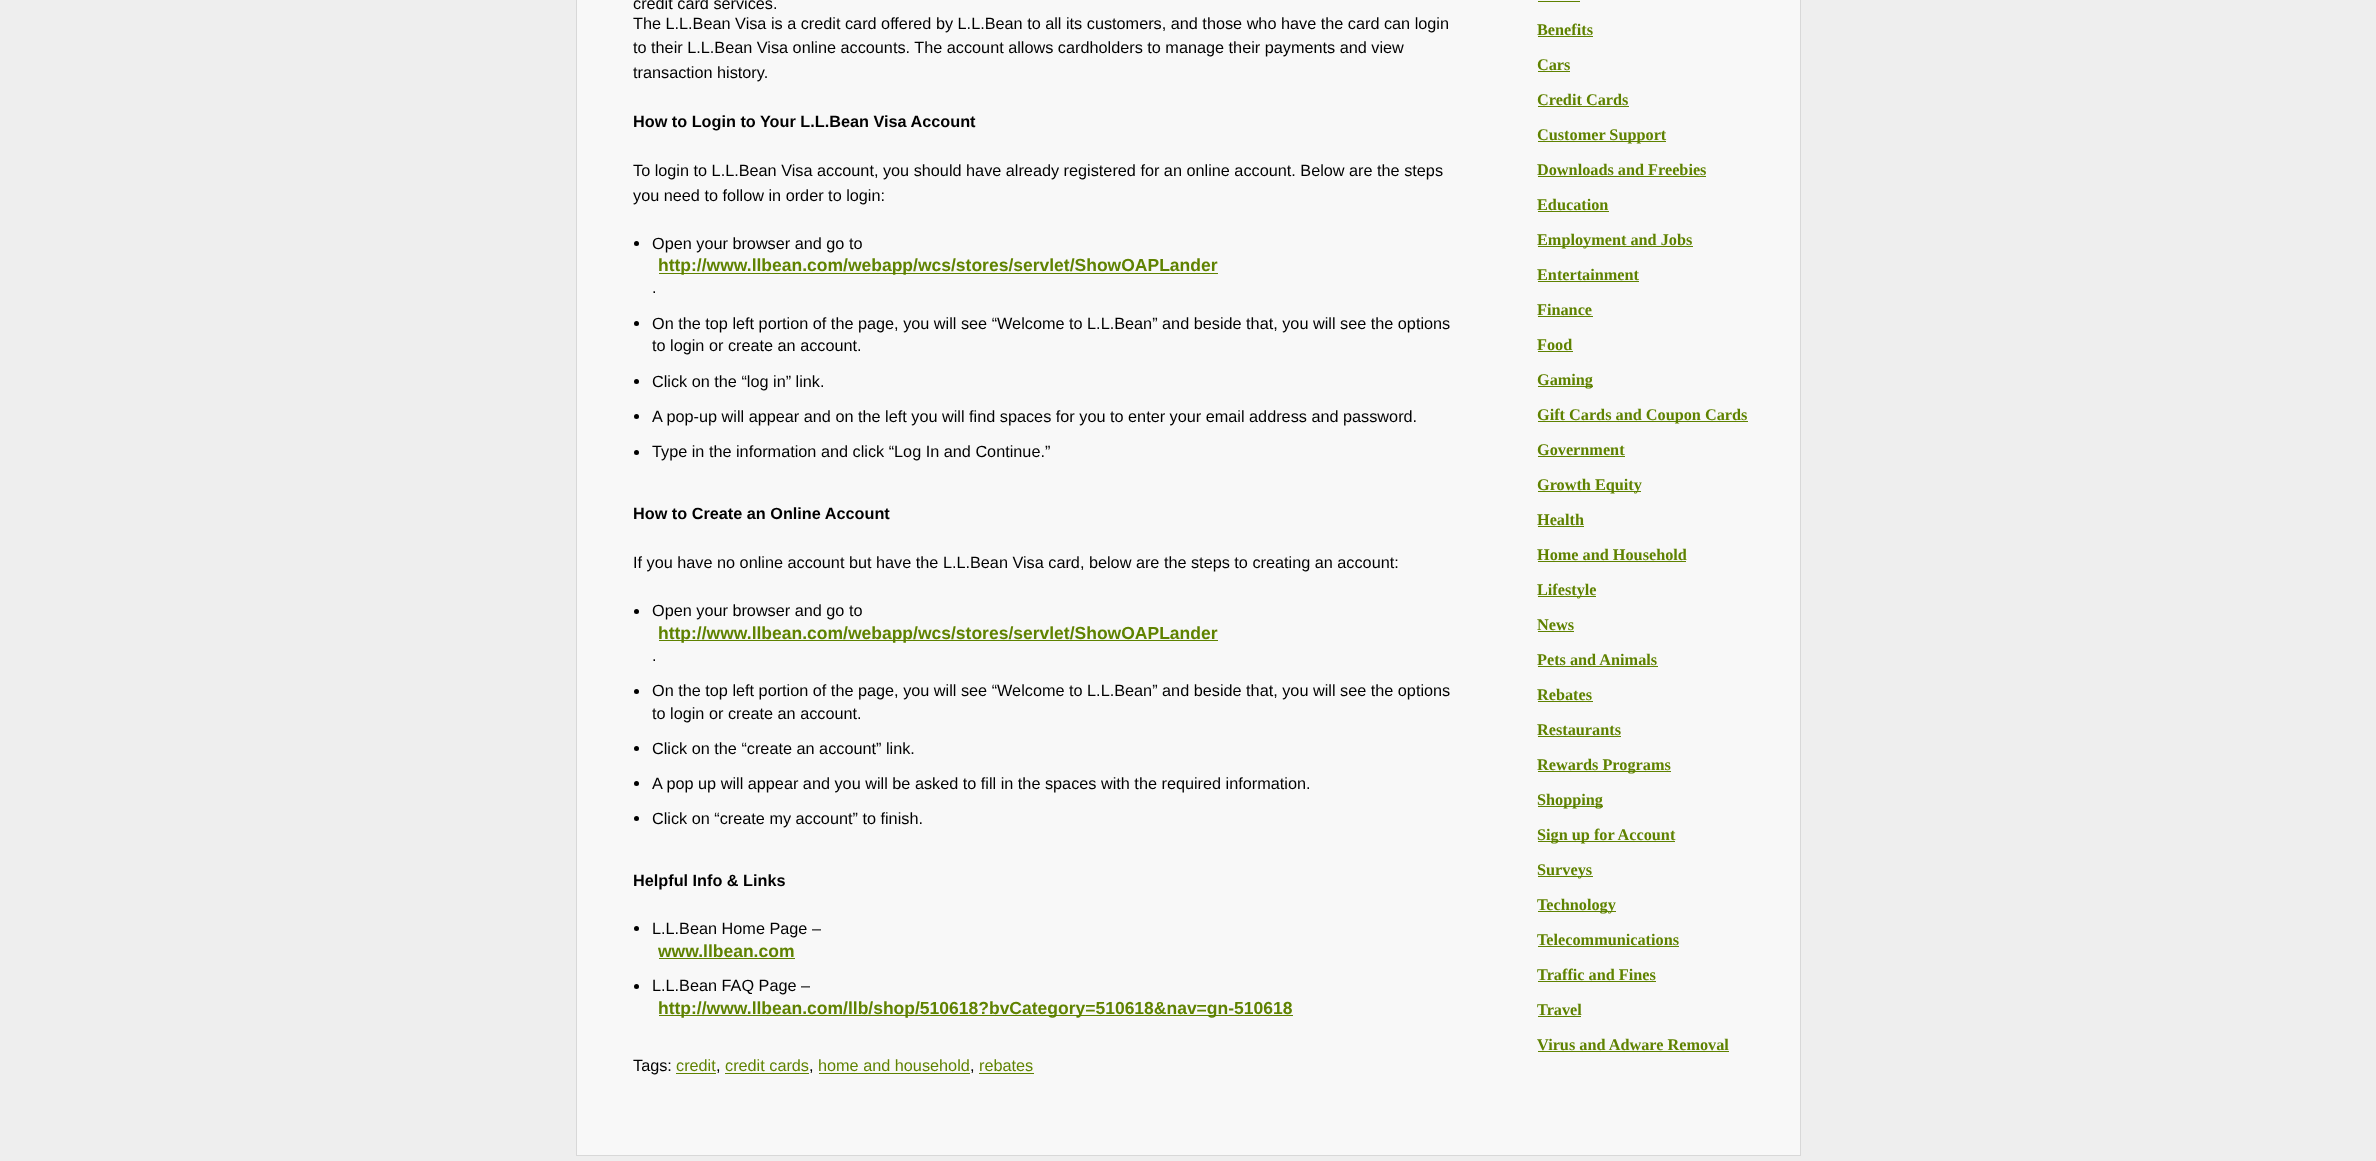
<svg xmlns="http://www.w3.org/2000/svg" width="2376" height="1161" viewBox="0 0 2376 1161">
  <rect width="100%" height="100%" fill="#eeeeee"/>
  <rect x="576.5" y="-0.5" width="1224" height="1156" fill="#f8f8f8" stroke="#d8d8d8"/>
  <text x="633" y="9" font-family="Liberation Sans" font-size="16.25" fill="#000000">credit card services.</text>
  <text x="633" y="29" font-family="Liberation Sans" font-size="16.25" fill="#000000">The L.L.Bean Visa is a credit card offered by L.L.Bean to all its customers, and those who have the card can login</text>
  <text x="633" y="53" font-family="Liberation Sans" font-size="16.25" fill="#000000">to their L.L.Bean Visa online accounts. The account allows cardholders to manage their payments and view</text>
  <text x="633" y="78" font-family="Liberation Sans" font-size="16.25" fill="#000000">transaction history.</text>
  <text x="633" y="127" font-family="Liberation Sans" font-size="16.25" font-weight="bold" fill="#000000">How to Login to Your L.L.Bean Visa Account</text>
  <text x="633" y="176" font-family="Liberation Sans" font-size="16.25" fill="#000000">To login to L.L.Bean Visa account, you should have already registered for an online account. Below are the steps</text>
  <text x="633" y="201" font-family="Liberation Sans" font-size="16.25" fill="#000000">you need to follow in order to login:</text>
  <circle cx="636.5" cy="243.5" r="2.5" fill="#000000"/>
  <text x="652" y="249" font-family="Liberation Sans" font-size="16.25" fill="#000000">Open your browser and go to</text>
  <rect x="659" y="273" width="559" height="1" fill="#5f8200"/>
  <text x="658" y="271" font-family="Liberation Sans" font-size="17.5" font-weight="bold" fill="#5f8200">http://www.llbean.com/webapp/wcs/stores/servlet/ShowOAPLander</text>
  <text x="652" y="293" font-family="Liberation Sans" font-size="16.25" fill="#000000">.</text>
  <circle cx="636.5" cy="323.5" r="2.5" fill="#000000"/>
  <text x="652" y="329" font-family="Liberation Sans" font-size="16.25" fill="#000000">On the top left portion of the page, you will see “Welcome to L.L.Bean” and beside that, you will see the options</text>
  <text x="652" y="351" font-family="Liberation Sans" font-size="16.25" fill="#000000">to login or create an account.</text>
  <circle cx="636.5" cy="381.5" r="2.5" fill="#000000"/>
  <text x="652" y="387" font-family="Liberation Sans" font-size="16.25" fill="#000000">Click on the “log in” link.</text>
  <circle cx="636.5" cy="416.5" r="2.5" fill="#000000"/>
  <text x="652" y="422" font-family="Liberation Sans" font-size="16.25" fill="#000000">A pop-up will appear and on the left you will find spaces for you to enter your email address and password.</text>
  <circle cx="636.5" cy="452.5" r="2.5" fill="#000000"/>
  <text x="652" y="457" font-family="Liberation Sans" font-size="16.25" fill="#000000">Type in the information and click “Log In and Continue.”</text>
  <text x="633" y="519" font-family="Liberation Sans" font-size="16.25" font-weight="bold" fill="#000000">How to Create an Online Account</text>
  <text x="633" y="568" font-family="Liberation Sans" font-size="16.25" fill="#000000">If you have no online account but have the L.L.Bean Visa card, below are the steps to creating an account:</text>
  <circle cx="636.5" cy="611.5" r="2.5" fill="#000000"/>
  <text x="652" y="616" font-family="Liberation Sans" font-size="16.25" fill="#000000">Open your browser and go to</text>
  <rect x="659" y="640" width="559" height="1" fill="#5f8200"/>
  <text x="658" y="639" font-family="Liberation Sans" font-size="17.5" font-weight="bold" fill="#5f8200">http://www.llbean.com/webapp/wcs/stores/servlet/ShowOAPLander</text>
  <text x="652" y="661" font-family="Liberation Sans" font-size="16.25" fill="#000000">.</text>
  <circle cx="636.5" cy="691.5" r="2.5" fill="#000000"/>
  <text x="652" y="696" font-family="Liberation Sans" font-size="16.25" fill="#000000">On the top left portion of the page, you will see “Welcome to L.L.Bean” and beside that, you will see the options</text>
  <text x="652" y="719" font-family="Liberation Sans" font-size="16.25" fill="#000000">to login or create an account.</text>
  <circle cx="636.5" cy="748.5" r="2.5" fill="#000000"/>
  <text x="652" y="754" font-family="Liberation Sans" font-size="16.25" fill="#000000">Click on the “create an account” link.</text>
  <circle cx="636.5" cy="783.5" r="2.5" fill="#000000"/>
  <text x="652" y="789" font-family="Liberation Sans" font-size="16.25" fill="#000000">A pop up will appear and you will be asked to fill in the spaces with the required information.</text>
  <circle cx="636.5" cy="818.5" r="2.5" fill="#000000"/>
  <text x="652" y="824" font-family="Liberation Sans" font-size="16.25" fill="#000000">Click on “create my account” to finish.</text>
  <text x="633" y="886" font-family="Liberation Sans" font-size="16.25" font-weight="bold" fill="#000000">Helpful Info &amp; Links</text>
  <circle cx="636.5" cy="928.5" r="2.5" fill="#000000"/>
  <text x="652" y="934" font-family="Liberation Sans" font-size="16.25" fill="#000000">L.L.Bean Home Page –</text>
  <text x="658" y="957" font-family="Liberation Sans" font-size="17.5" font-weight="bold" fill="#5f8200">www.llbean.com</text>
  <rect x="659" y="958" width="136" height="1" fill="#5f8200"/>
  <circle cx="636.5" cy="986.5" r="2.5" fill="#000000"/>
  <text x="652" y="991" font-family="Liberation Sans" font-size="16.25" fill="#000000">L.L.Bean FAQ Page –</text>
  <rect x="659" y="1015" width="634" height="1" fill="#5f8200"/>
  <text x="658" y="1014" font-family="Liberation Sans" font-size="17.5" font-weight="bold" fill="#5f8200">http://www.llbean.com/llb/shop/510618?bvCategory=510618&amp;nav=gn-510618</text>
  <text x="633" y="1071" font-family="Liberation Sans" font-size="16.25" fill="#000000">Tags:</text>
  <text x="676" y="1071" font-family="Liberation Sans" font-size="16.25" fill="#5f8200">credit</text>
  <rect x="676" y="1073" width="40" height="1" fill="#5f8200"/>
  <text x="716" y="1071" font-family="Liberation Sans" font-size="16.25" fill="#000000">,</text>
  <text x="725" y="1071" font-family="Liberation Sans" font-size="16.25" fill="#5f8200">credit cards</text>
  <rect x="725" y="1073" width="84" height="1" fill="#5f8200"/>
  <text x="809" y="1071" font-family="Liberation Sans" font-size="16.25" fill="#000000">,</text>
  <text x="818" y="1071" font-family="Liberation Sans" font-size="16.25" fill="#5f8200">home and household</text>
  <rect x="819" y="1073" width="151" height="1" fill="#5f8200"/>
  <text x="970" y="1071" font-family="Liberation Sans" font-size="16.25" fill="#000000">,</text>
  <text x="979" y="1071" font-family="Liberation Sans" font-size="16.25" fill="#5f8200">rebates</text>
  <rect x="979" y="1073" width="55" height="1" fill="#5f8200"/>
  <rect x="1538" y="1" width="42" height="1" fill="#5f8200"/>
  <text x="1537" y="35" font-family="Liberation Serif" font-size="16.25" font-weight="bold" fill="#5f8200">Benefits</text>
  <rect x="1538" y="36" width="55" height="1" fill="#5f8200"/>
  <text x="1537" y="70" font-family="Liberation Serif" font-size="16.25" font-weight="bold" fill="#5f8200">Cars</text>
  <rect x="1538" y="71" width="32" height="1" fill="#5f8200"/>
  <text x="1537" y="105" font-family="Liberation Serif" font-size="16.25" font-weight="bold" fill="#5f8200">Credit Cards</text>
  <rect x="1538" y="106" width="91" height="1" fill="#5f8200"/>
  <rect x="1538" y="141" width="128" height="1" fill="#5f8200"/>
  <text x="1537" y="140" font-family="Liberation Serif" font-size="16.25" font-weight="bold" fill="#5f8200">Customer Support</text>
  <text x="1537" y="175" font-family="Liberation Serif" font-size="16.25" font-weight="bold" fill="#5f8200">Downloads and Freebies</text>
  <rect x="1538" y="176" width="168" height="1" fill="#5f8200"/>
  <text x="1537" y="210" font-family="Liberation Serif" font-size="16.25" font-weight="bold" fill="#5f8200">Education</text>
  <rect x="1538" y="211" width="71" height="1" fill="#5f8200"/>
  <rect x="1538" y="246" width="155" height="1" fill="#5f8200"/>
  <text x="1537" y="245" font-family="Liberation Serif" font-size="16.25" font-weight="bold" fill="#5f8200">Employment and Jobs</text>
  <text x="1537" y="280" font-family="Liberation Serif" font-size="16.25" font-weight="bold" fill="#5f8200">Entertainment</text>
  <rect x="1538" y="281" width="101" height="1" fill="#5f8200"/>
  <text x="1537" y="315" font-family="Liberation Serif" font-size="16.25" font-weight="bold" fill="#5f8200">Finance</text>
  <rect x="1538" y="316" width="55" height="1" fill="#5f8200"/>
  <text x="1537" y="350" font-family="Liberation Serif" font-size="16.25" font-weight="bold" fill="#5f8200">Food</text>
  <rect x="1538" y="351" width="35" height="1" fill="#5f8200"/>
  <rect x="1538" y="386" width="55" height="1" fill="#5f8200"/>
  <text x="1537" y="385" font-family="Liberation Serif" font-size="16.25" font-weight="bold" fill="#5f8200">Gaming</text>
  <rect x="1538" y="421" width="210" height="1" fill="#5f8200"/>
  <text x="1537" y="420" font-family="Liberation Serif" font-size="16.25" font-weight="bold" fill="#5f8200">Gift Cards and Coupon Cards</text>
  <text x="1537" y="455" font-family="Liberation Serif" font-size="16.25" font-weight="bold" fill="#5f8200">Government</text>
  <rect x="1538" y="456" width="87" height="1" fill="#5f8200"/>
  <rect x="1538" y="491" width="103" height="1" fill="#5f8200"/>
  <text x="1537" y="490" font-family="Liberation Serif" font-size="16.25" font-weight="bold" fill="#5f8200">Growth Equity</text>
  <text x="1537" y="525" font-family="Liberation Serif" font-size="16.25" font-weight="bold" fill="#5f8200">Health</text>
  <rect x="1538" y="526" width="46" height="1" fill="#5f8200"/>
  <text x="1537" y="560" font-family="Liberation Serif" font-size="16.25" font-weight="bold" fill="#5f8200">Home and Household</text>
  <rect x="1538" y="561" width="148" height="1" fill="#5f8200"/>
  <rect x="1538" y="596" width="58" height="1" fill="#5f8200"/>
  <text x="1537" y="595" font-family="Liberation Serif" font-size="16.25" font-weight="bold" fill="#5f8200">Lifestyle</text>
  <text x="1537" y="630" font-family="Liberation Serif" font-size="16.25" font-weight="bold" fill="#5f8200">News</text>
  <rect x="1538" y="631" width="36" height="1" fill="#5f8200"/>
  <text x="1537" y="665" font-family="Liberation Serif" font-size="16.25" font-weight="bold" fill="#5f8200">Pets and Animals</text>
  <rect x="1538" y="666" width="120" height="1" fill="#5f8200"/>
  <text x="1537" y="700" font-family="Liberation Serif" font-size="16.25" font-weight="bold" fill="#5f8200">Rebates</text>
  <rect x="1538" y="701" width="55" height="1" fill="#5f8200"/>
  <text x="1537" y="735" font-family="Liberation Serif" font-size="16.25" font-weight="bold" fill="#5f8200">Restaurants</text>
  <rect x="1538" y="736" width="83" height="1" fill="#5f8200"/>
  <rect x="1538" y="771" width="133" height="1" fill="#5f8200"/>
  <text x="1537" y="770" font-family="Liberation Serif" font-size="16.25" font-weight="bold" fill="#5f8200">Rewards Programs</text>
  <rect x="1538" y="806" width="65" height="1" fill="#5f8200"/>
  <text x="1537" y="805" font-family="Liberation Serif" font-size="16.25" font-weight="bold" fill="#5f8200">Shopping</text>
  <rect x="1538" y="841" width="137" height="1" fill="#5f8200"/>
  <text x="1537" y="840" font-family="Liberation Serif" font-size="16.25" font-weight="bold" fill="#5f8200">Sign up for Account</text>
  <rect x="1538" y="876" width="55" height="1" fill="#5f8200"/>
  <text x="1537" y="875" font-family="Liberation Serif" font-size="16.25" font-weight="bold" fill="#5f8200">Surveys</text>
  <rect x="1538" y="911" width="78" height="1" fill="#5f8200"/>
  <text x="1537" y="910" font-family="Liberation Serif" font-size="16.25" font-weight="bold" fill="#5f8200">Technology</text>
  <text x="1537" y="945" font-family="Liberation Serif" font-size="16.25" font-weight="bold" fill="#5f8200">Telecommunications</text>
  <rect x="1538" y="946" width="141" height="1" fill="#5f8200"/>
  <text x="1537" y="980" font-family="Liberation Serif" font-size="16.25" font-weight="bold" fill="#5f8200">Traffic and Fines</text>
  <rect x="1538" y="981" width="118" height="1" fill="#5f8200"/>
  <text x="1537" y="1015" font-family="Liberation Serif" font-size="16.25" font-weight="bold" fill="#5f8200">Travel</text>
  <rect x="1538" y="1016" width="43" height="1" fill="#5f8200"/>
  <text x="1537" y="1050" font-family="Liberation Serif" font-size="16.25" font-weight="bold" fill="#5f8200">Virus and Adware Removal</text>
  <rect x="1538" y="1051" width="191" height="1" fill="#5f8200"/>
</svg>
